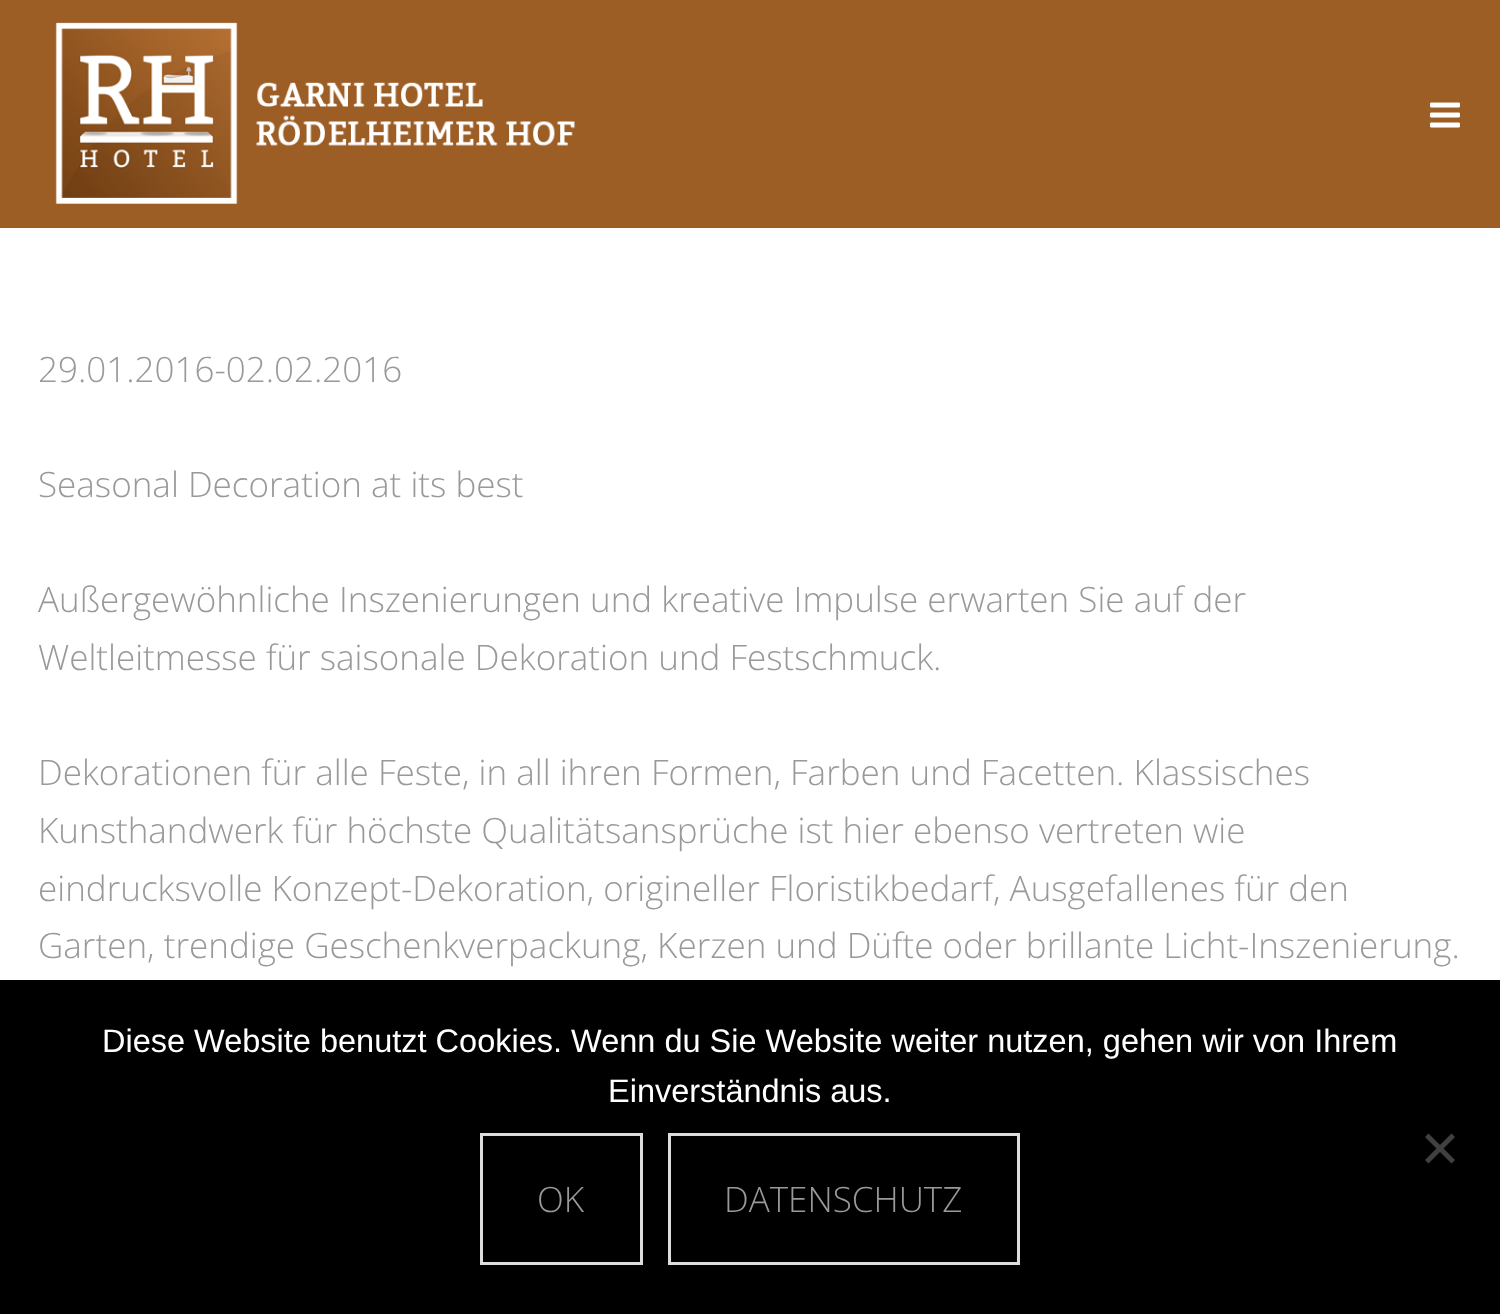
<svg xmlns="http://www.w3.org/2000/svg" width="1500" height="1314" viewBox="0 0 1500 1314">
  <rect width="100%" height="100%" fill="#ffffff"/>
  <rect x="0" y="0" width="1500" height="228" fill="#9d5e26"/>
  <image x="55" y="22" width="520" height="182" href="img1.png"/>
  <image x="1430" y="102" width="30" height="26" href="img2.png"/>
  <text x="38" y="382" font-family="Open Sans" font-size="35" font-weight="300" fill="#999999">29.01.2016-02.02.2016</text>
  <text x="38" y="497" font-family="Open Sans" font-size="35" font-weight="300" fill="#999999">Seasonal Decoration at its best</text>
  <text x="38" y="612" font-family="Open Sans" font-size="35" font-weight="300" fill="#999999">Außergewöhnliche Inszenierungen und kreative Impulse erwarten Sie auf der</text>
  <text x="38" y="670" font-family="Open Sans" font-size="35" font-weight="300" fill="#999999">Weltleitmesse für saisonale Dekoration und Festschmuck.</text>
  <text x="38" y="785" font-family="Open Sans" font-size="35" font-weight="300" fill="#999999">Dekorationen für alle Feste, in all ihren Formen, Farben und Facetten. Klassisches</text>
  <text x="38" y="843" font-family="Open Sans" font-size="35" font-weight="300" fill="#999999">Kunsthandwerk für höchste Qualitätsansprüche ist hier ebenso vertreten wie</text>
  <text x="38" y="901" font-family="Open Sans" font-size="35" font-weight="300" fill="#999999">eindrucksvolle Konzept-Dekoration, origineller Floristikbedarf, Ausgefallenes für den</text>
  <text x="38" y="958" font-family="Open Sans" font-size="35" font-weight="300" fill="#999999">Garten, trendige Geschenkverpackung, Kerzen und Düfte oder brillante Licht-Inszenierung.</text>
  <rect x="0" y="980" width="1500" height="334" fill="#000000"/>
  <text x="102" y="1052" font-family="Liberation Sans" font-size="32.5" fill="#ffffff">Diese Website benutzt Cookies. Wenn du Sie Website weiter nutzen, gehen wir von Ihrem</text>
  <text x="608" y="1102" font-family="Liberation Sans" font-size="32.5" fill="#ffffff">Einverständnis aus.</text>
  <path d="M1451.5 1133.5L1455 1137L1428.5 1163.5L1425 1160Z" fill="#404040"/>
  <path d="M1425 1137L1428.5 1133.5L1455 1160L1451.5 1163.5Z" fill="#404040"/>
  <rect x="481.5" y="1134.5" width="160" height="129" fill="none" stroke="#dddddd" stroke-width="3"/>
  <text x="537" y="1212" font-family="Open Sans" font-size="35" font-weight="300" fill="#999999">OK</text>
  <rect x="669.5" y="1134.5" width="349" height="129" fill="none" stroke="#dddddd" stroke-width="3"/>
  <text x="724" y="1212" font-family="Open Sans" font-size="35" font-weight="300" fill="#999999">DATENSCHUTZ</text>
</svg>
